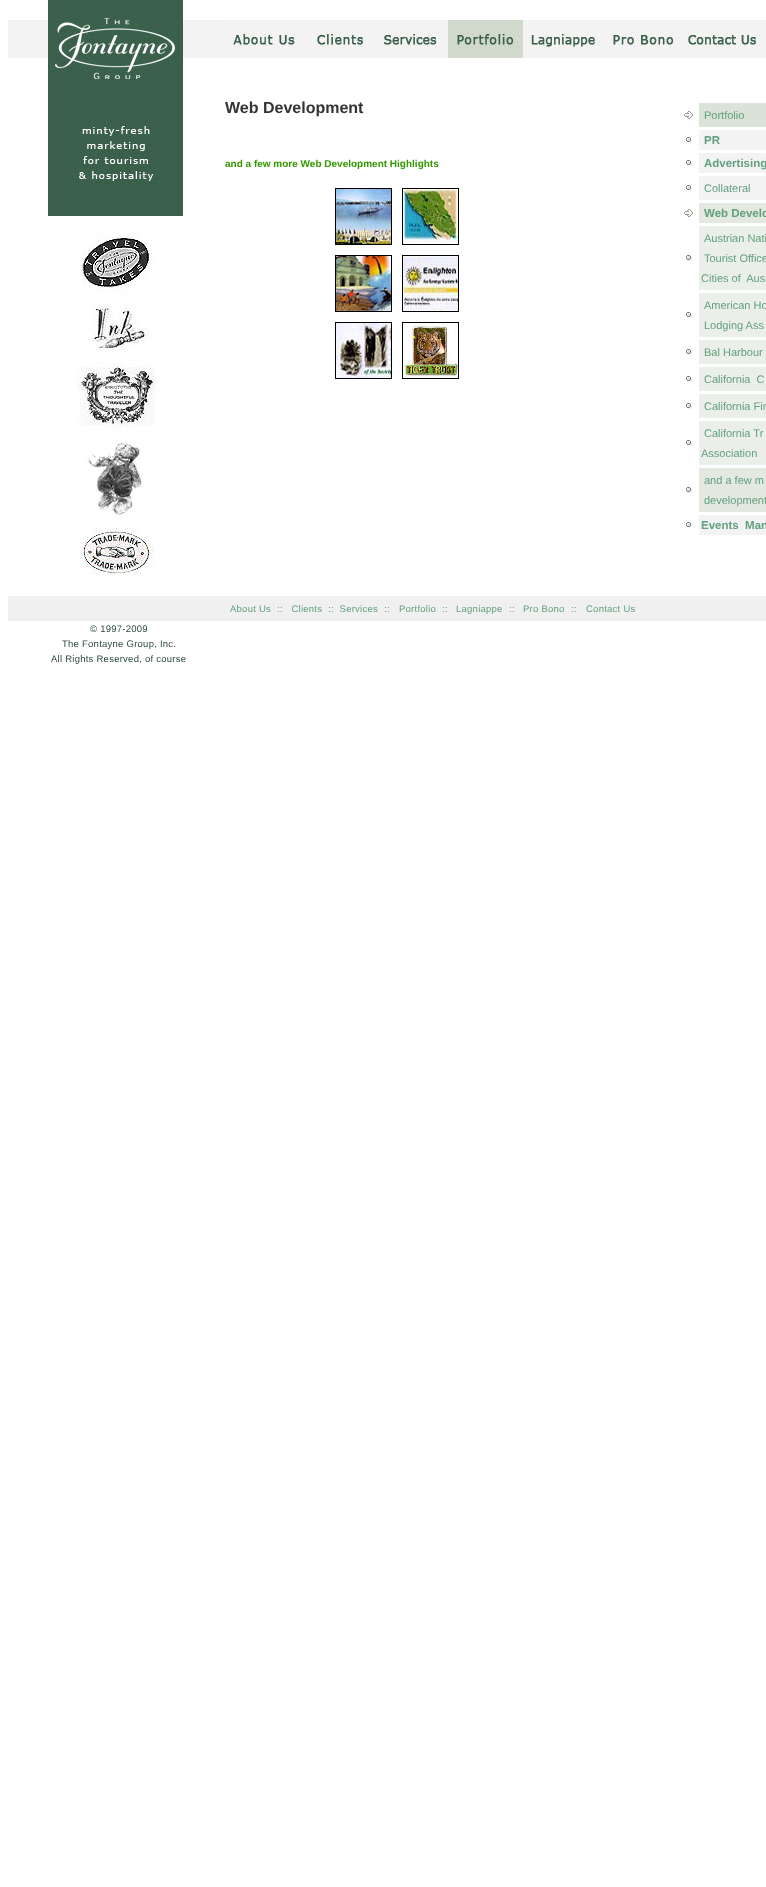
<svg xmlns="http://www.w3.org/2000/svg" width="766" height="1887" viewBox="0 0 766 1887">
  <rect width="100%" height="100%" fill="#ffffff"/>
  <image x="8" y="0" width="217" height="216" href="img1.png"/>
  <image x="75" y="232" width="81" height="344" href="img2.png"/>
  <rect x="225" y="20" width="541" height="38" fill="#f3f3f3"/>
  <image x="233" y="32" width="64" height="16" href="img3.png"/>
  <image x="314" y="32" width="56" height="16" href="img4.png"/>
  <image x="382" y="32" width="56" height="16" href="img5.png"/>
  <image x="448" y="20" width="75" height="38" href="img6.png"/>
  <image x="531" y="32" width="64" height="16" href="img7.png"/>
  <image x="612" y="32" width="64" height="16" href="img8.png"/>
  <image x="682" y="32" width="80" height="16" href="img9.png"/>
  <text x="225" y="113" font-family="Liberation Sans" font-size="16" font-weight="bold" fill="#333333">Web Development</text>
  <text x="225" y="167" font-family="Liberation Sans" font-size="10" font-weight="bold" fill="#339900">and a few more Web Development Highlights</text>
  <rect x="335.5" y="188.5" width="56" height="56" fill="none" stroke="#000000"/>
  <image x="336" y="189" width="55" height="55" href="img10.png"/>
  <rect x="402.5" y="188.5" width="56" height="56" fill="none" stroke="#000000"/>
  <image x="403" y="189" width="55" height="55" href="img11.png"/>
  <rect x="335.5" y="255.5" width="56" height="56" fill="none" stroke="#000000"/>
  <image x="336" y="256" width="55" height="55" href="img12.png"/>
  <rect x="402.5" y="255.5" width="56" height="56" fill="none" stroke="#000000"/>
  <image x="403" y="256" width="55" height="55" href="img13.png"/>
  <rect x="335.5" y="322.5" width="56" height="56" fill="none" stroke="#000000"/>
  <image x="336" y="323" width="55" height="55" href="img14.png"/>
  <rect x="402.5" y="322.5" width="56" height="56" fill="none" stroke="#000000"/>
  <image x="403" y="323" width="55" height="54" href="img15.png"/>
  <image x="684" y="109" width="9" height="12" href="img16.png"/>
  <rect x="699" y="103" width="67" height="24" fill="#dbe2d8"/>
  <text x="704" y="119" font-family="Liberation Sans" font-size="11" fill="#63a07e">Portfolio</text>
  <image x="685" y="134" width="7" height="9" href="img17.png"/>
  <rect x="699" y="130" width="67" height="20" fill="#f3f3f3"/>
  <text x="704" y="144" font-family="Liberation Sans" font-size="11.5" font-weight="bold" fill="#63a07e">PR</text>
  <image x="685" y="157" width="7" height="9" href="img17.png"/>
  <rect x="699" y="153" width="67" height="20" fill="#f3f3f3"/>
  <text x="704" y="167" font-family="Liberation Sans" font-size="11.5" font-weight="bold" fill="#63a07e">Advertising</text>
  <image x="685" y="182" width="7" height="9" href="img17.png"/>
  <rect x="699" y="176" width="67" height="24" fill="#f3f3f3"/>
  <text x="704" y="192" font-family="Liberation Sans" font-size="11" fill="#63a07e">Collateral</text>
  <image x="684" y="207" width="9" height="12" href="img16.png"/>
  <rect x="699" y="203" width="67" height="20" fill="#e3e9e0"/>
  <text x="704" y="217" font-family="Liberation Sans" font-size="11.5" font-weight="bold" fill="#63a07e">Web Develo</text>
  <image x="685" y="252" width="7" height="9" href="img17.png"/>
  <rect x="699" y="226" width="67" height="64" fill="#ebefe9"/>
  <text x="704" y="242" font-family="Liberation Sans" font-size="11" fill="#63a07e">Austrian Nati</text>
  <text x="704" y="262" font-family="Liberation Sans" font-size="11" fill="#63a07e">Tourist Office</text>
  <text x="701" y="282" font-family="Liberation Sans" font-size="11" fill="#63a07e" xml:space="preserve">Cities of  Aus</text>
  <image x="685" y="309" width="7" height="9" href="img17.png"/>
  <rect x="699" y="293" width="67" height="44" fill="#ebefe9"/>
  <text x="704" y="309" font-family="Liberation Sans" font-size="11" fill="#63a07e">American Ho</text>
  <text x="704" y="329" font-family="Liberation Sans" font-size="11" fill="#63a07e">Lodging Ass</text>
  <image x="685" y="346" width="7" height="9" href="img17.png"/>
  <rect x="699" y="340" width="67" height="24" fill="#ebefe9"/>
  <text x="704" y="356" font-family="Liberation Sans" font-size="11" fill="#63a07e">Bal Harbour</text>
  <image x="685" y="373" width="7" height="9" href="img17.png"/>
  <rect x="699" y="367" width="67" height="24" fill="#ebefe9"/>
  <text x="704" y="383" font-family="Liberation Sans" font-size="11" fill="#63a07e" xml:space="preserve">California  C</text>
  <image x="685" y="400" width="7" height="9" href="img17.png"/>
  <rect x="699" y="394" width="67" height="24" fill="#ebefe9"/>
  <text x="704" y="410" font-family="Liberation Sans" font-size="11" fill="#63a07e">California Fin</text>
  <image x="685" y="437" width="7" height="9" href="img17.png"/>
  <rect x="699" y="421" width="67" height="44" fill="#ebefe9"/>
  <text x="704" y="437" font-family="Liberation Sans" font-size="11" fill="#63a07e">California Tr</text>
  <text x="701" y="457" font-family="Liberation Sans" font-size="11" fill="#63a07e">Association</text>
  <image x="685" y="484" width="7" height="9" href="img17.png"/>
  <rect x="699" y="468" width="67" height="44" fill="#e3e9e0"/>
  <text x="704" y="484" font-family="Liberation Sans" font-size="11" fill="#63a07e">and a few m</text>
  <text x="704" y="504" font-family="Liberation Sans" font-size="11" fill="#63a07e">development</text>
  <image x="685" y="519" width="7" height="9" href="img17.png"/>
  <rect x="699" y="515" width="67" height="20" fill="#f3f3f3"/>
  <text x="701" y="529" font-family="Liberation Sans" font-size="11.5" font-weight="bold" fill="#63a07e" xml:space="preserve">Events  Man</text>
  <rect x="8" y="596" width="758" height="25" fill="#f0f0f0"/>
  <text x="230" y="612" font-family="Liberation Sans" font-size="9.5" letter-spacing="0.25" fill="#63a07e">About Us</text>
  <text x="277" y="612" font-family="Liberation Sans" font-size="9.5" letter-spacing="0.25" fill="#63a07e" xml:space="preserve">::   Clients</text>
  <text x="328" y="612" font-family="Liberation Sans" font-size="9.5" letter-spacing="0.25" fill="#63a07e" xml:space="preserve">::  Services</text>
  <text x="384" y="612" font-family="Liberation Sans" font-size="9.5" letter-spacing="0.25" fill="#63a07e">::</text>
  <text x="399" y="612" font-family="Liberation Sans" font-size="9.5" letter-spacing="0.25" fill="#63a07e">Portfolio</text>
  <text x="442" y="612" font-family="Liberation Sans" font-size="9.5" letter-spacing="0.25" fill="#63a07e">::</text>
  <text x="456" y="612" font-family="Liberation Sans" font-size="9.5" letter-spacing="0.25" fill="#63a07e">Lagniappe</text>
  <text x="509" y="612" font-family="Liberation Sans" font-size="9.5" letter-spacing="0.25" fill="#63a07e">::</text>
  <text x="523" y="612" font-family="Liberation Sans" font-size="9.5" letter-spacing="0.25" fill="#63a07e">Pro Bono</text>
  <text x="571" y="612" font-family="Liberation Sans" font-size="9.5" letter-spacing="0.25" fill="#63a07e">::</text>
  <text x="586" y="612" font-family="Liberation Sans" font-size="9.5" letter-spacing="0.25" fill="#63a07e">Contact Us</text>
  <text x="90" y="632" font-family="Liberation Sans" font-size="9.5" letter-spacing="0.25" fill="#2e4b3c">© 1997-2009</text>
  <text x="62" y="647" font-family="Liberation Sans" font-size="9.5" letter-spacing="0.25" fill="#2e4b3c">The Fontayne Group, Inc.</text>
  <text x="51" y="662" font-family="Liberation Sans" font-size="9.5" letter-spacing="0.25" fill="#2e4b3c">All Rights Reserved, of course</text>
</svg>
